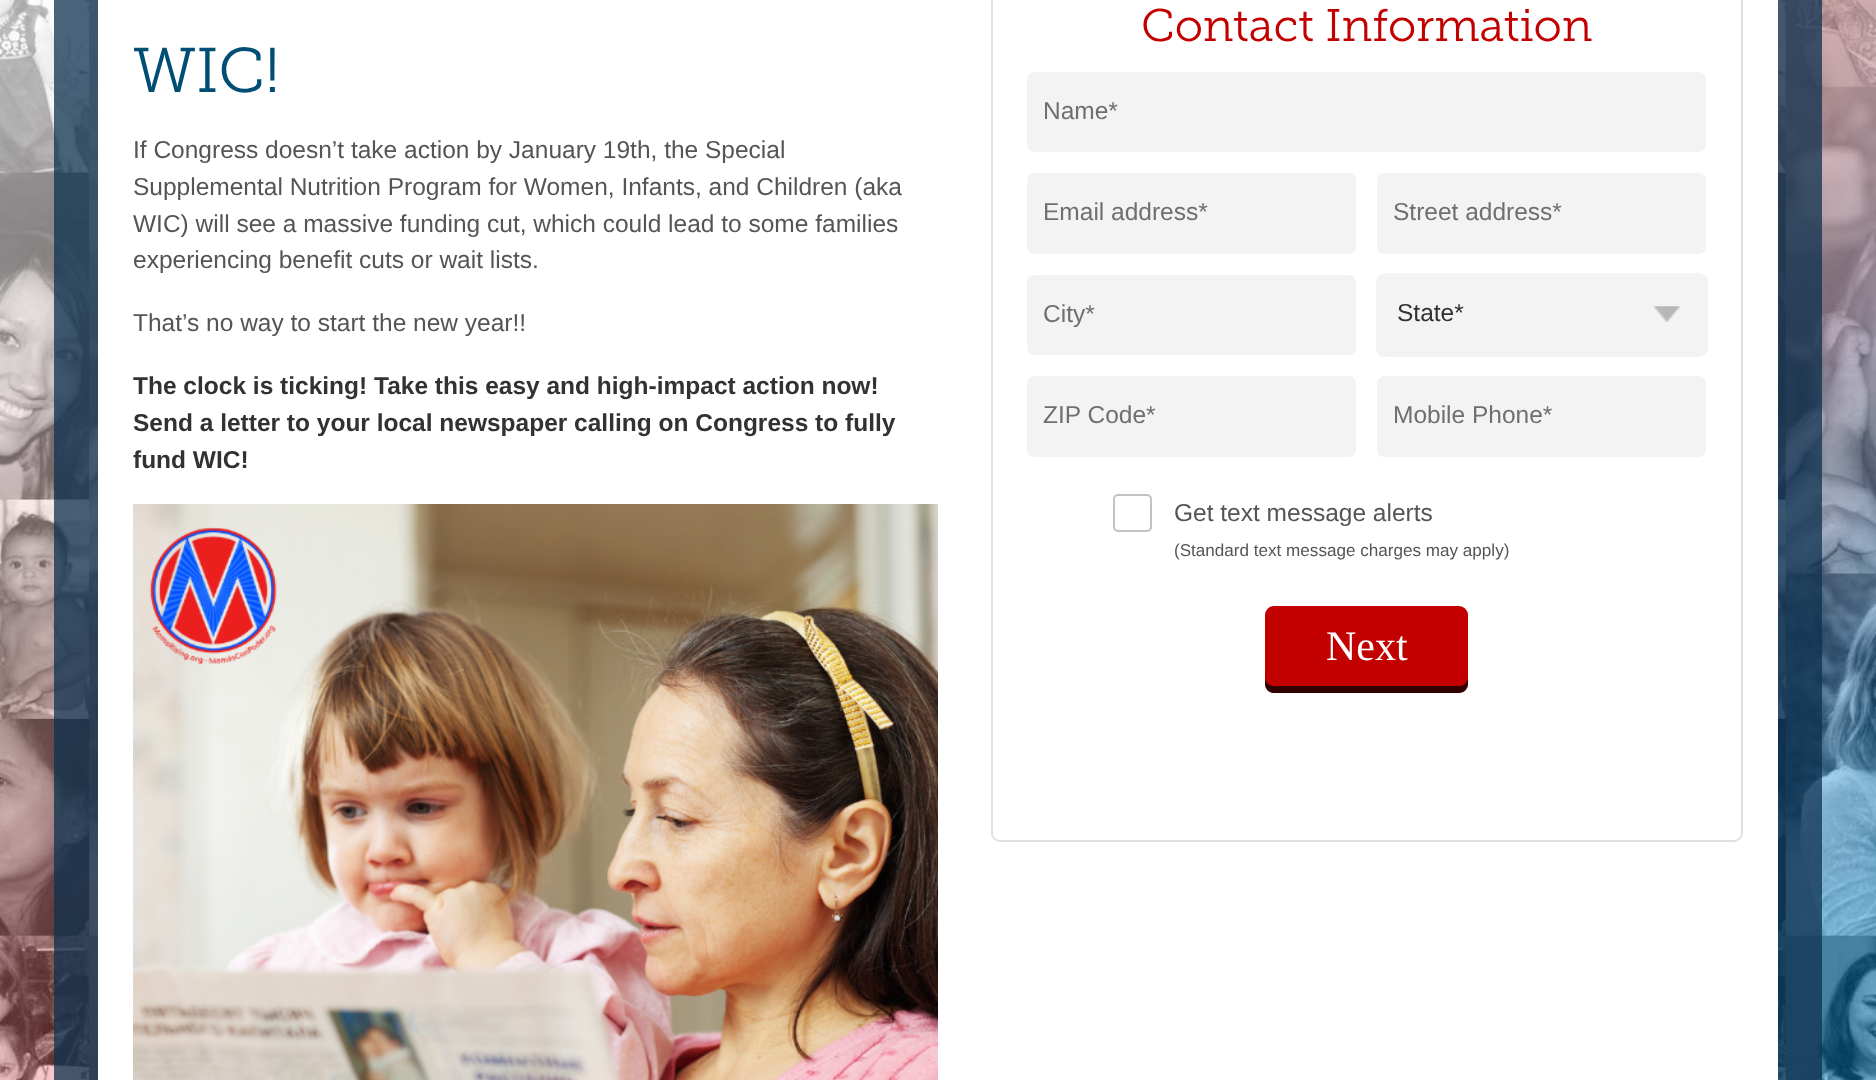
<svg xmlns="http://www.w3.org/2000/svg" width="1876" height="1080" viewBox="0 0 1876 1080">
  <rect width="100%" height="100%" fill="#ffffff"/>
  <image x="0" y="0" width="1876" height="1080" href="img1.png"/>
  <rect x="98" y="0" width="1680" height="1080" fill="#ffffff"/>
  <text x="133" y="92" font-family="'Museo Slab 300'" font-size="63" font-weight="300" fill="#014e75">WIC!</text>
  <text x="133" y="158" font-family="Liberation Sans" font-size="24.5" fill="#555555">If Congress doesn’t take action by January 19th, the Special</text>
  <text x="133" y="195" font-family="Liberation Sans" font-size="24.5" fill="#555555">Supplemental Nutrition Program for Women, Infants, and Children (aka</text>
  <text x="133" y="232" font-family="Liberation Sans" font-size="24.5" fill="#555555">WIC) will see a massive funding cut, which could lead to some families</text>
  <text x="133" y="268" font-family="Liberation Sans" font-size="24.5" fill="#555555">experiencing benefit cuts or wait lists.</text>
  <text x="133" y="331" font-family="Liberation Sans" font-size="24.5" fill="#555555">That’s no way to start the new year!!</text>
  <text x="133" y="394" font-family="Liberation Sans" font-size="24.5" font-weight="bold" fill="#333232">The clock is ticking! Take this easy and high-impact action now!</text>
  <text x="133" y="431" font-family="Liberation Sans" font-size="24.5" font-weight="bold" fill="#333232">Send a letter to your local newspaper calling on Congress to fully</text>
  <text x="133" y="468" font-family="Liberation Sans" font-size="24.5" font-weight="bold" fill="#333232">fund WIC!</text>
  <image x="133" y="504" width="805" height="576" href="img2.png"/>
  <rect x="992" y="-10" width="750" height="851" rx="8" fill="none" stroke="#e1e1e1" stroke-width="2"/>
  <text x="1141" y="41" font-family="'Museo Slab 300'" font-size="45.5" font-weight="300" fill="#c30000">Contact Information</text>
  <rect x="1027" y="72" width="679" height="80" rx="7" fill="#f3f3f3"/>
  <text x="1043" y="119" font-family="Liberation Sans" font-size="24.5" fill="#6f6f6f">Name*</text>
  <rect x="1027" y="173" width="329" height="81" rx="7" fill="#f3f3f3"/>
  <text x="1043" y="220" font-family="Liberation Sans" font-size="24.5" fill="#6f6f6f">Email address*</text>
  <rect x="1377" y="173" width="329" height="81" rx="7" fill="#f3f3f3"/>
  <text x="1393" y="220" font-family="Liberation Sans" font-size="24.5" fill="#6f6f6f">Street address*</text>
  <rect x="1027" y="275" width="329" height="80" rx="7" fill="#f3f3f3"/>
  <text x="1043" y="322" font-family="Liberation Sans" font-size="24.5" fill="#6f6f6f">City*</text>
  <rect x="1376" y="273" width="332" height="84" rx="9" fill="#f3f3f3"/>
  <image x="1653" y="306" width="28" height="16" href="img3.png"/>
  <text x="1397" y="321" font-family="Liberation Sans" font-size="24.5" fill="#333232">State*</text>
  <rect x="1027" y="376" width="329" height="81" rx="7" fill="#f3f3f3"/>
  <text x="1043" y="423" font-family="Liberation Sans" font-size="24.5" fill="#6f6f6f">ZIP Code*</text>
  <rect x="1377" y="376" width="329" height="81" rx="7" fill="#f3f3f3"/>
  <text x="1393" y="423" font-family="Liberation Sans" font-size="24.5" fill="#6f6f6f">Mobile Phone*</text>
  <rect x="1114" y="495" width="37" height="36" rx="4" fill="none" stroke="#c2c2c2" stroke-width="2"/>
  <text x="1174" y="521" font-family="Liberation Sans" font-size="24.5" fill="#555555">Get text message alerts</text>
  <text x="1174" y="556" font-family="Liberation Sans" font-size="17.1" fill="#555555">(Standard text message charges may apply)</text>
  <rect x="1265" y="606" width="203" height="87" rx="9" fill="#c30000"/>
  <path d="M1265 677V684C1265 689 1269 693 1274 693H1459C1464 693 1468 689 1468 684V677C1468 682 1464 686 1460 686H1274C1269 686 1265 682 1265 677Z" fill="#000000" fill-opacity="0.75"/>
  <text x="1326" y="660" font-family="Liberation Serif" font-size="42" fill="#ffffff">Next</text>
</svg>
